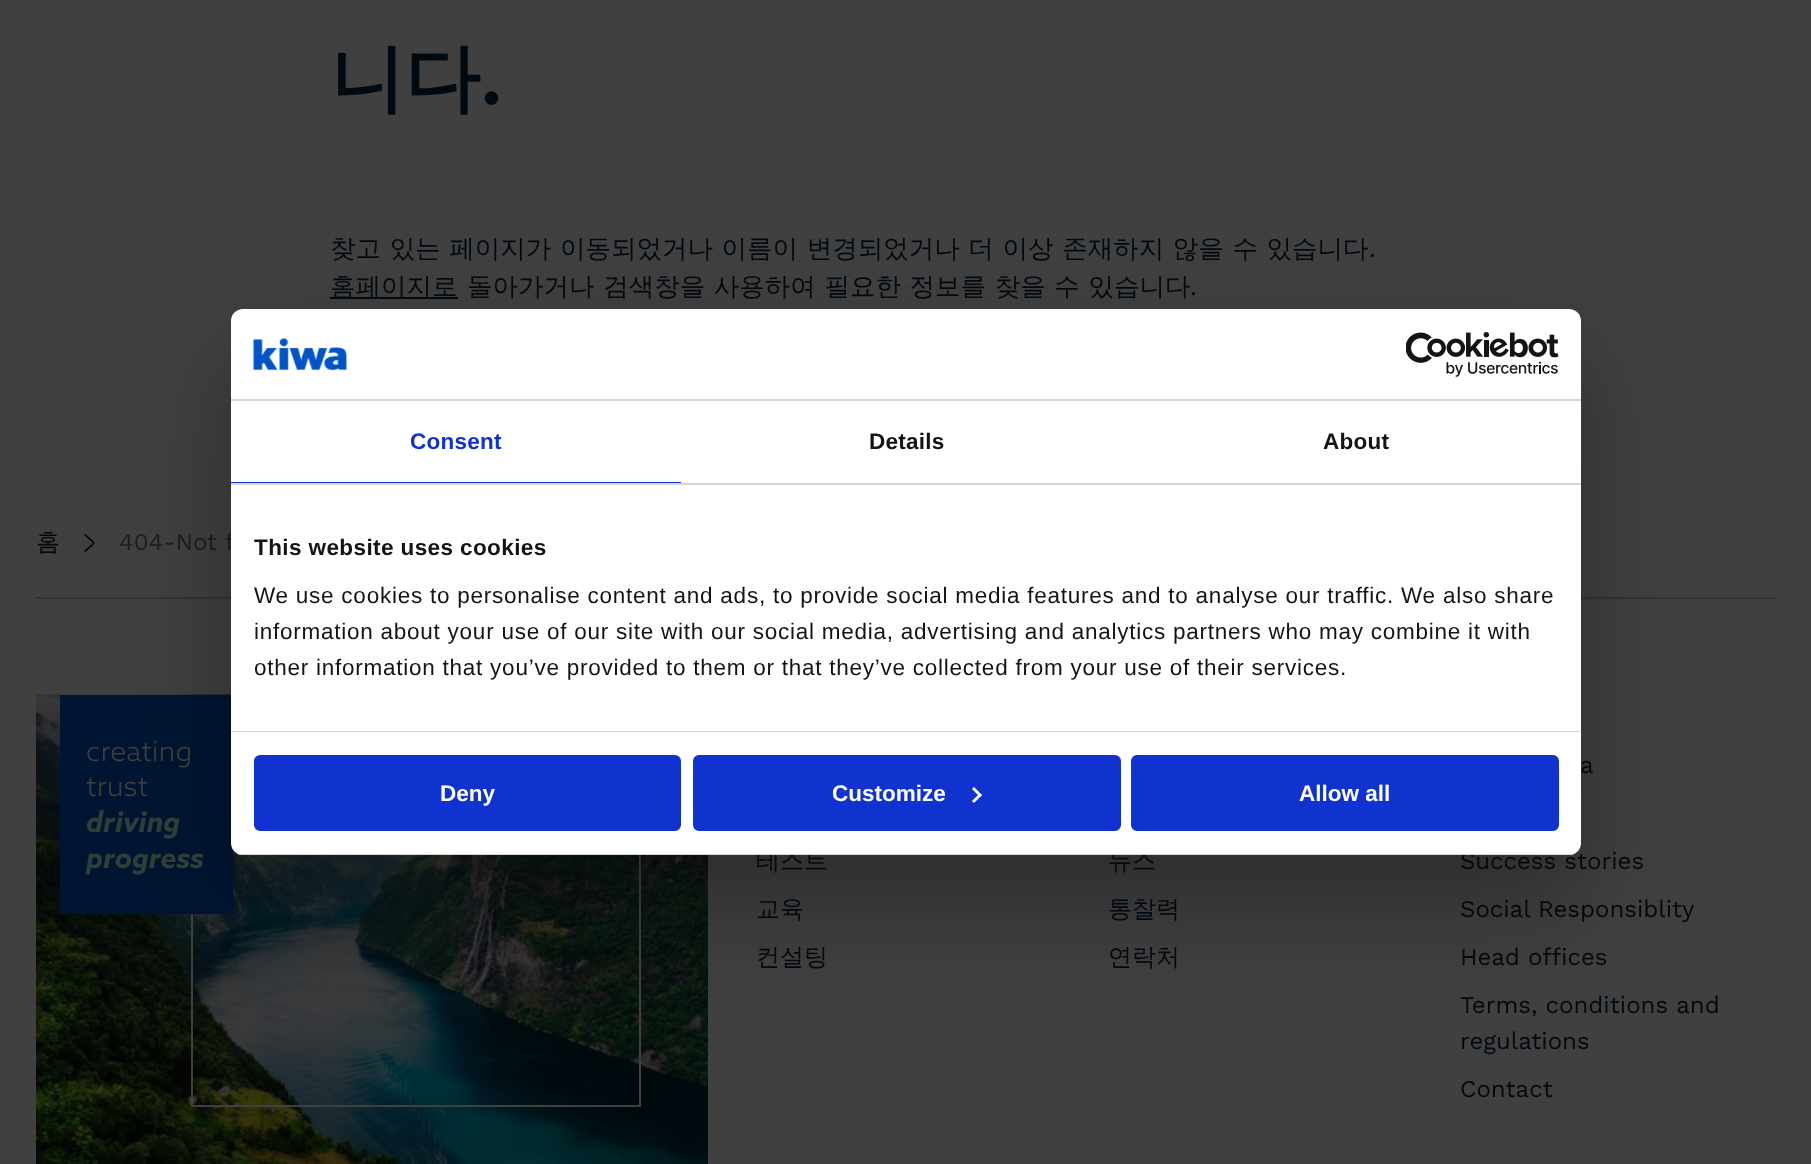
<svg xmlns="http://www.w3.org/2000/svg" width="1811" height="1164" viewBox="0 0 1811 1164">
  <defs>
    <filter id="blur1" x="-50%" y="-200%" width="200%" height="500%"><feGaussianBlur stdDeviation="51"/></filter>
    <clipPath id="clip1"><rect x="231" y="309" width="1350" height="546" rx="12"/></clipPath>
  </defs>
  <rect width="100%" height="100%" fill="#404040"/>
  <text x="330" y="104" font-family="WenQuanYi Zen Hei" font-size="75" font-weight="bold" fill="#020a11">니다</text>
  <text x="480" y="104" font-family="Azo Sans" font-size="75" font-weight="bold" fill="#020a11">.</text>
  <text x="330" y="257" word-spacing="1" font-family="WenQuanYi Zen Hei" font-size="25.5" font-weight="500" fill="#020a11">찾고 있는 페이지가 이동되었거나 이름이 변경되었거나 더 이상 존재하지 않을 수 있습니다</text>
  <text x="1369" y="257" font-family="Work Sans" font-size="25.5" fill="#020a11">.</text>
  <rect x="330" y="297" width="128" height="2" fill="#020a11"/>
  <text x="330" y="295" font-family="WenQuanYi Zen Hei" font-size="25.5" font-weight="500" fill="#020a11">홈페이지로</text>
  <text x="467" y="295" word-spacing="1" font-family="WenQuanYi Zen Hei" font-size="25.5" font-weight="500" fill="#020a11">돌아가거나 검색창을 사용하여 필요한 정보를 찾을 수 있습니다</text>
  <text x="1190" y="295" font-family="Work Sans" font-size="25.5" fill="#020a11">.</text>
  <text x="36" y="550" font-family="WenQuanYi Zen Hei" font-size="24" font-weight="500" fill="#020a11">홈</text>
  <image x="84" y="534" width="11" height="18" href="img1.png"/>
  <text x="119" y="550" font-family="Work Sans" font-size="24" fill="#1e1d1c">404-Not f</text>
  <rect x="36" y="597" width="1740" height="2" fill="#343332"/>
  <image x="36" y="694" width="672" height="470" href="img4.png"/>
  <rect x="192" y="786" width="448" height="320" fill="none" stroke="#404040" stroke-width="2"/>
  <rect x="60" y="695" width="173" height="219" fill="#001531"/>
  <rect x="231" y="357" width="1350" height="546" rx="12" fill="#000000" fill-opacity="0.3" filter="url(#blur1)"/>
  <text x="756" y="869" font-family="WenQuanYi Zen Hei" font-size="24" font-weight="500" fill="#020a11">테스트</text>
  <text x="1108" y="869" font-family="WenQuanYi Zen Hei" font-size="24" font-weight="500" fill="#020a11">뉴스</text>
  <text x="1460" y="869" font-family="Work Sans" font-size="24" fill="#020a11">Success stories</text>
  <rect x="231" y="309" width="1350" height="546" rx="12" fill="#ffffff"/>
  <rect x="231" y="399" width="1350" height="2" fill="#d6d6d6"/>
  <image x="253" y="338" width="94" height="33" href="img2.png"/>
  <image x="1406" y="332" width="153" height="45" href="img3.png"/>
  <rect x="231" y="483" width="1350" height="2" fill="#d6d6d6"/>
  <rect x="231" y="482" width="450" height="1" fill="#1032cf"/>
  <text x="410" y="449" font-family="Liberation Sans" font-size="22.5" font-weight="bold" letter-spacing="0.25" fill="#1032cf">Consent</text>
  <text x="869" y="449" font-family="Liberation Sans" font-size="22.5" font-weight="bold" letter-spacing="0.25" fill="#141414">Details</text>
  <text x="1323" y="449" font-family="Liberation Sans" font-size="22.5" font-weight="bold" letter-spacing="0.25" fill="#141414">About</text>
  <rect x="231" y="731" width="1350" height="1" fill="#d6d6d6"/>
  <text x="254" y="555" font-family="Liberation Sans" font-size="22.5" font-weight="bold" letter-spacing="0.4" fill="#141414">This website uses cookies</text>
  <text x="254" y="603" font-family="Liberation Sans" font-size="22.5" letter-spacing="0.75" fill="#141414">We use cookies to personalise content and ads, to provide social media features and to analyse our traffic. We also share</text>
  <text x="254" y="639" font-family="Liberation Sans" font-size="22.5" letter-spacing="0.75" fill="#141414">information about your use of our site with our social media, advertising and analytics partners who may combine it with</text>
  <text x="254" y="675" font-family="Liberation Sans" font-size="22.5" letter-spacing="0.75" fill="#141414">other information that you’ve provided to them or that they’ve collected from your use of their services.</text>
  <g clip-path="url(#clip1)">
    <rect x="231" y="854" width="1350" height="1" fill="#d6d6d6"/>
  </g>
  <rect x="255.5" y="756.5" width="424" height="73" rx="4.5" fill="#1032cf" stroke="#1032cf" stroke-width="3"/>
  <text x="440" y="801" font-family="Liberation Sans" font-size="22.5" font-weight="bold" fill="#ffffff">Deny</text>
  <rect x="694.5" y="756.5" width="425" height="73" rx="4.5" fill="#1032cf" stroke="#1032cf" stroke-width="3"/>
  <text x="832" y="801" font-family="Liberation Sans" font-size="22.5" font-weight="bold" fill="#ffffff">Customize</text>
  <path d="M974 787L982 795L980 797L972 789Z" fill="#ffffff"/>
  <path d="M980 793L982 795L974 803L972 801Z" fill="#ffffff"/>
  <rect x="1132.5" y="756.5" width="425" height="73" rx="4.5" fill="#1032cf" stroke="#1032cf" stroke-width="3"/>
  <text x="1299" y="801" font-family="Liberation Sans" font-size="22.5" font-weight="bold" fill="#ffffff">Allow all</text>
  <text x="86" y="761" font-family="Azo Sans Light" font-size="28.5" font-weight="300" fill="#404040">creating</text>
  <text x="86" y="796" font-family="Azo Sans Light" font-size="28.5" font-weight="300" fill="#404040">trust</text>
  <text x="86" y="832" font-family="Azo Sans" font-size="28.5" font-weight="bold" font-style="italic" fill="#2f3f37">driving</text>
  <text x="86" y="868" font-family="Azo Sans" font-size="28.5" font-weight="bold" font-style="italic" fill="#2f3f37">progress</text>
  <text x="756" y="917" font-family="WenQuanYi Zen Hei" font-size="24" font-weight="500" fill="#020a11">교육</text>
  <text x="756" y="965" font-family="WenQuanYi Zen Hei" font-size="24" font-weight="500" fill="#020a11">컨설팅</text>
  <text x="1108" y="917" font-family="WenQuanYi Zen Hei" font-size="24" font-weight="500" fill="#020a11">통찰력</text>
  <text x="1108" y="965" font-family="WenQuanYi Zen Hei" font-size="24" font-weight="500" fill="#020a11">연락처</text>
  <text x="1580" y="773" font-family="Work Sans" font-size="24" fill="#020a11">a</text>
  <text x="1460" y="917" font-family="Work Sans" font-size="24" fill="#020a11">Social Responsiblity</text>
  <text x="1460" y="965" font-family="Work Sans" font-size="24" fill="#020a11">Head offices</text>
  <text x="1460" y="1013" font-family="Work Sans" font-size="24" fill="#020a11">Terms, conditions and</text>
  <text x="1460" y="1049" font-family="Work Sans" font-size="24" fill="#020a11">regulations</text>
  <text x="1460" y="1097" font-family="Work Sans" font-size="24" fill="#020a11">Contact</text>
</svg>
